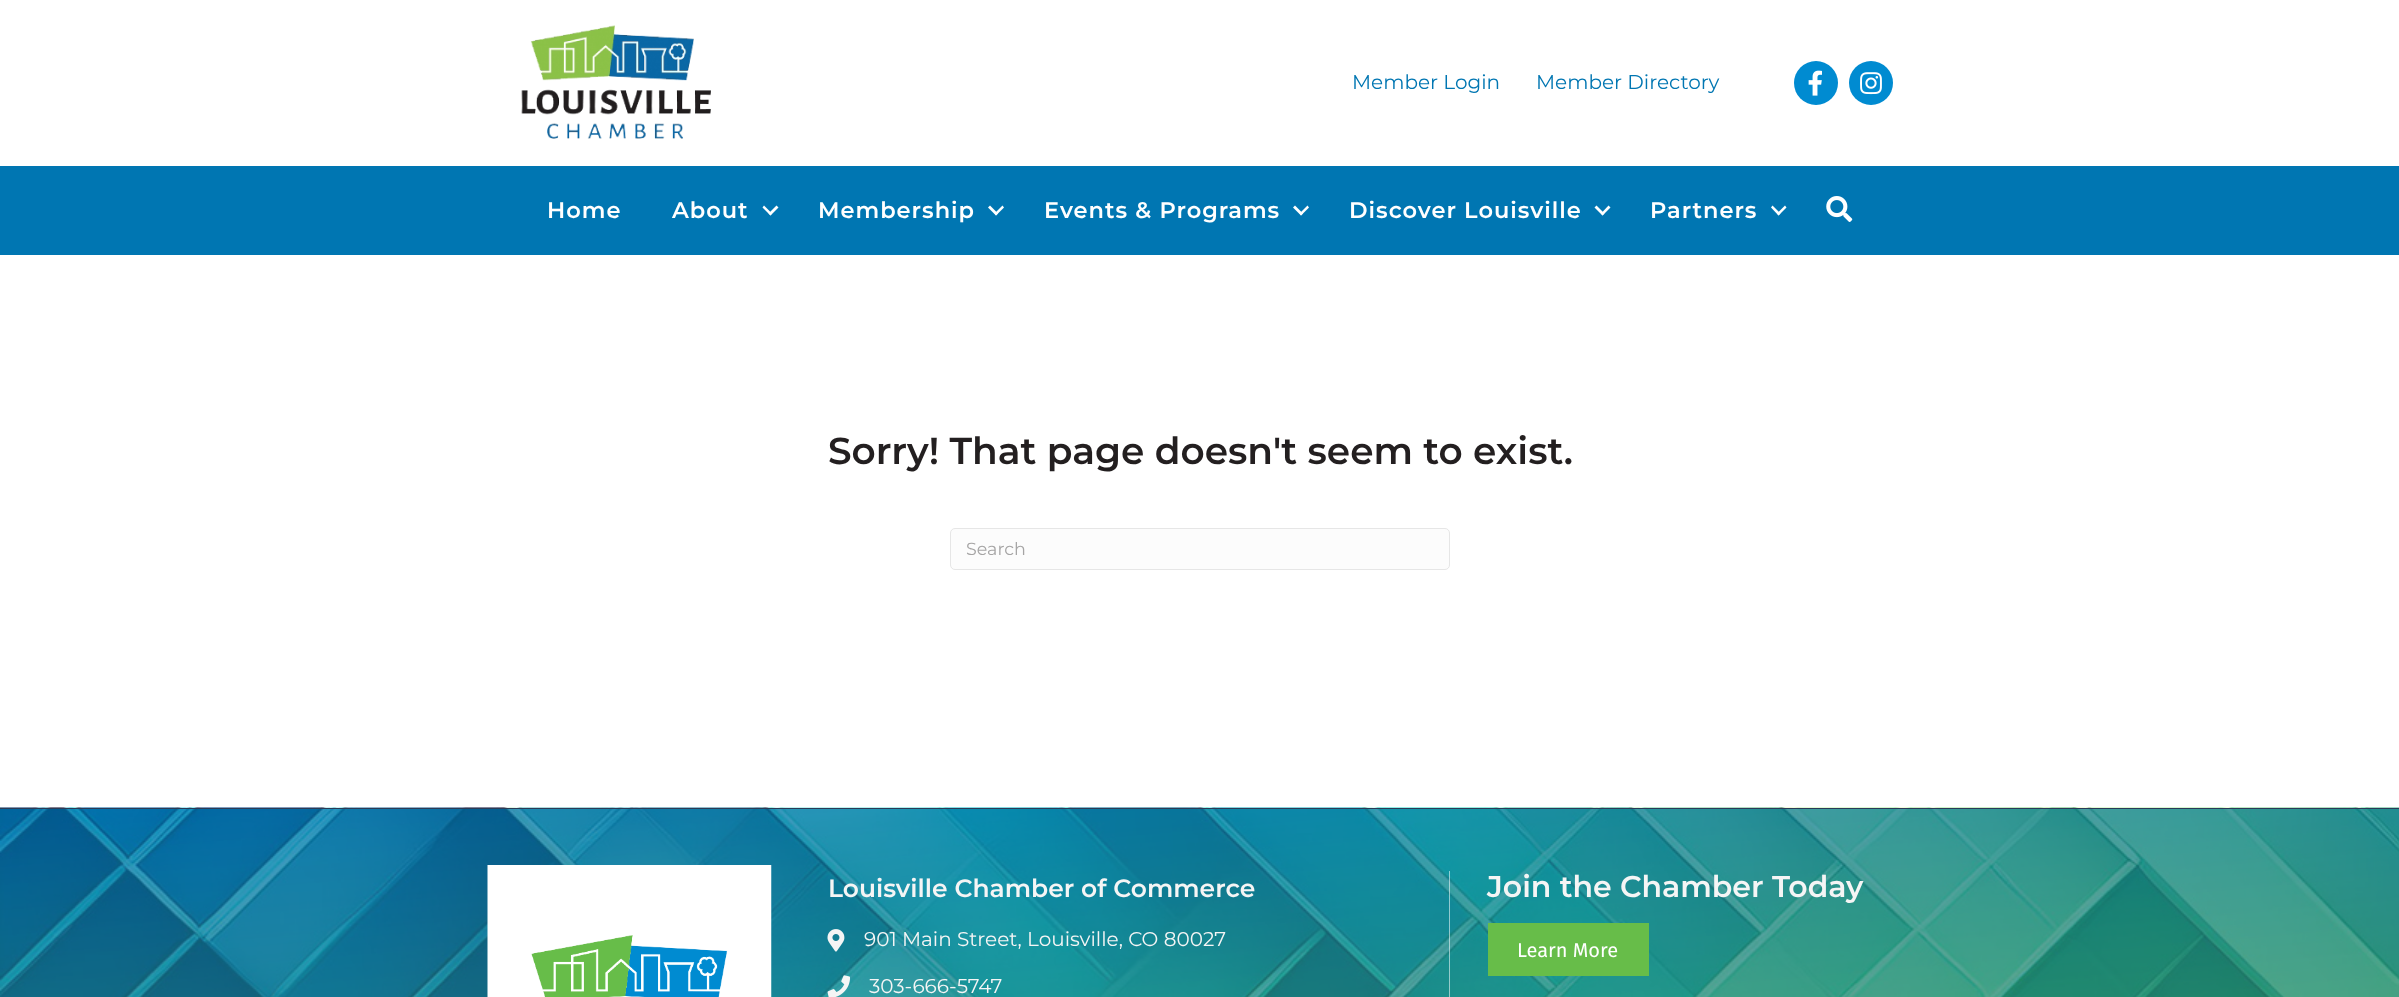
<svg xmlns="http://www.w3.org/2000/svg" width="2399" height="997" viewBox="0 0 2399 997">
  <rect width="100%" height="100%" fill="#ffffff"/>
  <image x="521" y="25" width="190" height="114" href="img1.png"/>
  <text x="1352" y="89" font-family="Montserrat" font-size="20" fill="#0076b2">Member Login</text>
  <text x="1536" y="89" font-family="Montserrat" font-size="20" fill="#0076b2">Member Directory</text>
  <circle cx="1816" cy="83" r="22" fill="#008bd1"/>
  <image x="1808" y="70" width="14" height="26" href="img2.png"/>
  <circle cx="1871" cy="83" r="22" fill="#008bd1"/>
  <image x="1860" y="72" width="22" height="23" href="img3.png"/>
  <rect x="0" y="166" width="2399" height="89" fill="#0076b2"/>
  <text x="547" y="218" font-family="Montserrat" font-size="22.5" font-weight="600" letter-spacing="1" fill="#ffffff">Home</text>
  <text x="672" y="218" font-family="Montserrat" font-size="22.5" font-weight="600" letter-spacing="1" fill="#ffffff">About</text>
  <path d="M776.5 205.5L778.5 207.5L770.5 215.5L768.5 213.5Z" fill="#ffffff"/>
  <path d="M764 205.5L772 213.5L770.5 215.5L762.5 207.5Z" fill="#ffffff"/>
  <text x="818" y="218" font-family="Montserrat" font-size="22.5" font-weight="600" letter-spacing="1" fill="#ffffff">Membership</text>
  <path d="M1002.5 205.5L1004 207.5L996 215.5L994.5 213.5Z" fill="#ffffff"/>
  <path d="M990 205.5L998 213.5L996 215.5L988 207.5Z" fill="#ffffff"/>
  <text x="1044" y="218" font-family="Montserrat" font-size="22.5" font-weight="600" letter-spacing="1" fill="#ffffff">Events &amp; Programs</text>
  <path d="M1307.5 205.5L1309 207.5L1301 215.5L1299.5 213.5Z" fill="#ffffff"/>
  <path d="M1295 205.5L1303 213.5L1301 215.5L1293 207.5Z" fill="#ffffff"/>
  <text x="1349" y="218" font-family="Montserrat" font-size="22.5" font-weight="600" letter-spacing="1" fill="#ffffff">Discover Louisville</text>
  <path d="M1608.5 205.5L1610.5 207.5L1602.5 215.5L1601 213.5Z" fill="#ffffff"/>
  <path d="M1596.5 205.5L1604.5 213.5L1602.5 215.5L1594.5 207.5Z" fill="#ffffff"/>
  <text x="1650" y="218" font-family="Montserrat" font-size="22.5" font-weight="600" letter-spacing="1" fill="#ffffff">Partners</text>
  <path d="M1785 205.5L1786.5 207.5L1778.5 215.5L1777 213.5Z" fill="#ffffff"/>
  <path d="M1772.5 205.5L1780.5 213.5L1778.5 215.5L1771 207.5Z" fill="#ffffff"/>
  <image x="1826" y="196" width="27" height="26" href="img4.png"/>
  <text x="828" y="464" font-family="Montserrat" font-size="37.5" font-weight="600" fill="#231f20">Sorry! That page doesn't seem to exist.</text>
  <rect x="950.5" y="528.5" width="499" height="41" rx="4.5" fill="#fcfcfc" stroke="#e6e6e6"/>
  <text x="966" y="555" font-family="Montserrat" font-size="17.5" fill="#a5a4a4">Search</text>
  <image x="0" y="807" width="2399" height="190" href="img5.png"/>
  <rect x="0" y="808" width="2399" height="1" fill="#2c3a56"/>
  <image x="487" y="865" width="285" height="132" href="img6.png"/>
  <text x="828" y="897" font-family="Montserrat" font-size="25" font-weight="600" fill="#f5f5f5">Louisville Chamber of Commerce</text>
  <image x="827" y="929" width="18" height="23" href="img7.png"/>
  <text x="864" y="946" font-family="Montserrat" font-size="20" fill="#f5f5f5">901 Main Street, Louisville, CO 80027</text>
  <image x="827" y="975" width="23" height="22" href="img8.png"/>
  <text x="869" y="993" font-family="Montserrat" font-size="20" fill="#f5f5f5">303-666-5747</text>
  <rect x="1449" y="871" width="1" height="126" fill="#ffffff" fill-opacity="0.54"/>
  <text x="1487" y="897" font-family="Montserrat" font-size="30" font-weight="600" fill="#f5f5f5">Join the Chamber Today</text>
  <rect x="1488" y="923" width="161" height="53" fill="#67bd49"/>
  <text x="1517" y="957" font-family="Fira Sans" font-size="20" fill="#ffffff">Learn More</text>
</svg>
